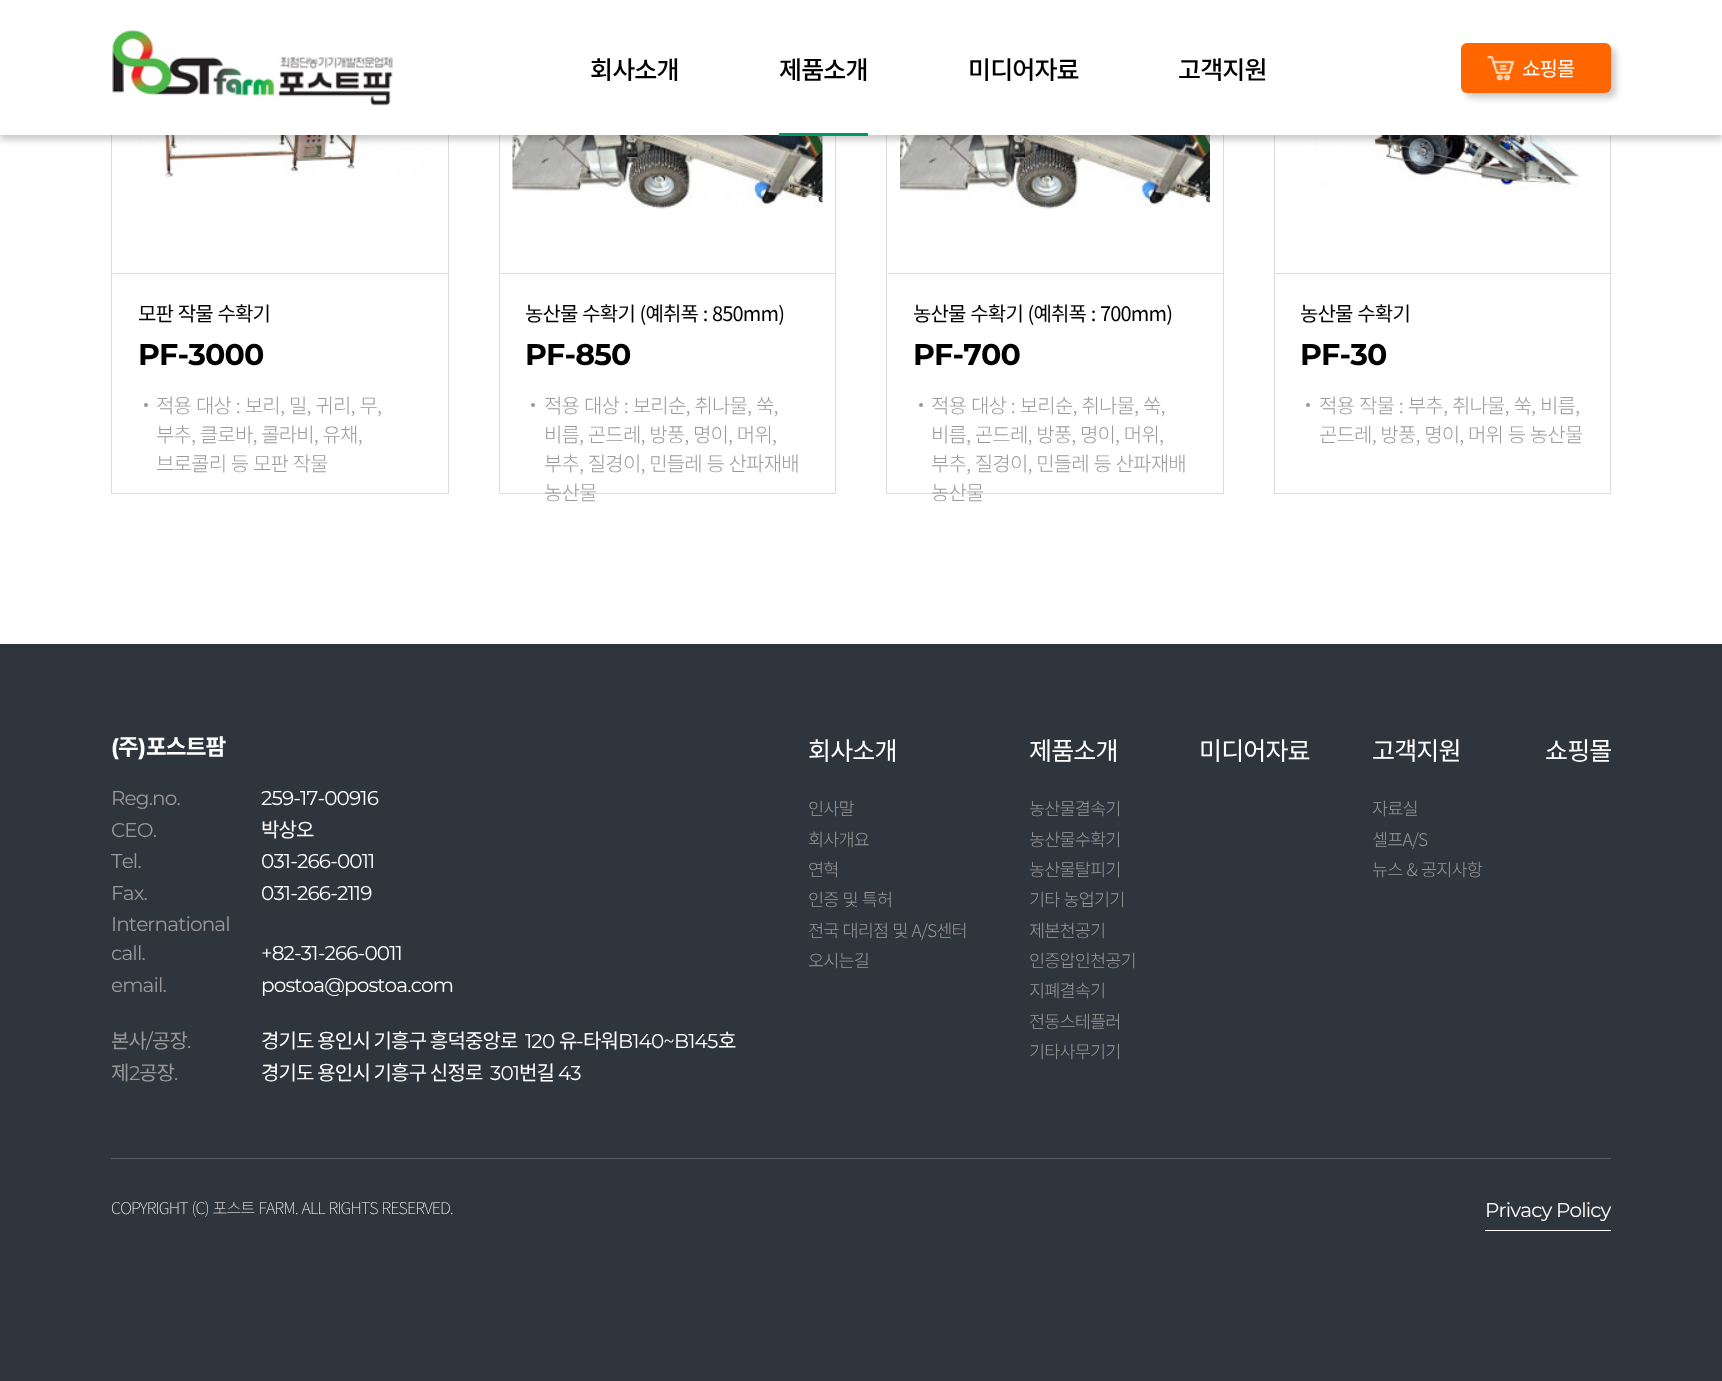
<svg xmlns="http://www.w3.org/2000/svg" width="1722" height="1381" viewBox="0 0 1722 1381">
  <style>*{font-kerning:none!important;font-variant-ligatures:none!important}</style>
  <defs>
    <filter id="blur1" x="-50%" y="-200%" width="200%" height="500%"><feGaussianBlur stdDeviation="3"/></filter>
  </defs>
  <rect width="100%" height="100%" fill="#ffffff"/>
  <rect x="111.5" y="-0.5" width="337" height="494" fill="none" stroke="#dddddd"/>
  <image x="125" y="135" width="310" height="43" href="img3.png"/>
  <rect x="499.5" y="-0.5" width="336" height="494" fill="none" stroke="#dddddd"/>
  <image x="512" y="135" width="311" height="75" href="img4.png"/>
  <rect x="886.5" y="-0.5" width="337" height="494" fill="none" stroke="#dddddd"/>
  <image x="900" y="135" width="310" height="74" href="img5.png"/>
  <rect x="1274.5" y="-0.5" width="336" height="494" fill="none" stroke="#dddddd"/>
  <image x="1299" y="135" width="281" height="55" href="img6.png"/>
  <rect x="0" y="5" width="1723" height="135" fill="#000000" fill-opacity="0.2" filter="url(#blur1)"/>
  <rect x="0" y="0" width="1722" height="135" fill="#ffffff"/>
  <image x="112" y="30" width="281" height="76" href="img1.png"/>
  <text x="590" y="79" font-family="Noto Sans KR" font-size="25" font-weight="500" letter-spacing="-0.85" fill="#000000">회사소개</text>
  <text x="779" y="79" font-family="Noto Sans KR" font-size="25" font-weight="500" letter-spacing="-0.85" fill="#000000">제품소개</text>
  <rect x="779" y="133" width="89" height="3" fill="#009966"/>
  <text x="968" y="79" font-family="Noto Sans KR" font-size="25" font-weight="500" letter-spacing="-0.85" fill="#000000">미디어자료</text>
  <text x="1178" y="79" font-family="Noto Sans KR" font-size="25" font-weight="500" letter-spacing="-0.85" fill="#000000">고객지원</text>
  <rect x="1466" y="48" width="150" height="50" rx="6" fill="#000000" fill-opacity="0.2" filter="url(#blur1)"/>
  <rect x="1461" y="43" width="150" height="50" rx="6" fill="#ff6600"/>
  <image x="1487" y="56" width="27" height="25" href="img2.png"/>
  <text x="1522" y="76" font-family="Noto Sans KR" font-size="20" letter-spacing="-0.85" fill="#ffffff">쇼핑몰</text>
  <rect x="113" y="273" width="335" height="1" fill="#dddddd"/>
  <text x="138" y="321" word-spacing="1" font-family="Noto Sans KR" font-size="20" letter-spacing="-0.85" fill="#000000">모판 작물 수확기</text>
  <text x="138" y="365" font-family="Montserrat" font-size="30" font-weight="bold" letter-spacing="-0.85" fill="#000000">PF-3000</text>
  <circle cx="146" cy="405" r="2" fill="#999999"/>
  <text x="156" y="413" word-spacing="1.25" font-family="Noto Sans KR" font-size="20" font-weight="300" letter-spacing="-0.85" fill="#999999">적용 대상 : 보리, 밀, 귀리, 무,</text>
  <text x="156" y="442" word-spacing="1" font-family="Noto Sans KR" font-size="20" font-weight="300" letter-spacing="-0.85" fill="#999999">부추, 클로바, 콜라비, 유채,</text>
  <text x="156" y="471" word-spacing="1" font-family="Noto Sans KR" font-size="20" font-weight="300" letter-spacing="-0.85" fill="#999999">브로콜리 등 모판 작물</text>
  <rect x="500" y="273" width="335" height="1" fill="#dddddd"/>
  <text x="525" y="321" word-spacing="1" font-family="Noto Sans KR" font-size="20" letter-spacing="-0.85" fill="#000000">농산물 수확기 (예취폭 : 850mm)</text>
  <text x="525" y="365" font-family="Montserrat" font-size="30" font-weight="bold" letter-spacing="-0.85" fill="#000000">PF-850</text>
  <circle cx="533" cy="405" r="2" fill="#999999"/>
  <text x="544" y="413" word-spacing="1.25" font-family="Noto Sans KR" font-size="20" font-weight="300" letter-spacing="-0.85" fill="#999999">적용 대상 : 보리순, 취나물, 쑥,</text>
  <text x="544" y="442" word-spacing="1" font-family="Noto Sans KR" font-size="20" font-weight="300" letter-spacing="-0.85" fill="#999999">비름, 곤드레, 방풍, 명이, 머위,</text>
  <text x="544" y="471" word-spacing="1" font-family="Noto Sans KR" font-size="20" font-weight="300" letter-spacing="-0.85" fill="#999999">부추, 질경이, 민들레 등 산파재배</text>
  <text x="544" y="500" font-family="Noto Sans KR" font-size="20" font-weight="300" letter-spacing="-0.85" fill="#999999">농산물</text>
  <rect x="888" y="273" width="335" height="1" fill="#dddddd"/>
  <text x="913" y="321" word-spacing="1" font-family="Noto Sans KR" font-size="20" letter-spacing="-0.85" fill="#000000">농산물 수확기 (예취폭 : 700mm)</text>
  <text x="913" y="365" font-family="Montserrat" font-size="30" font-weight="bold" letter-spacing="-0.85" fill="#000000">PF-700</text>
  <circle cx="921" cy="405" r="2" fill="#999999"/>
  <text x="931" y="413" word-spacing="1.25" font-family="Noto Sans KR" font-size="20" font-weight="300" letter-spacing="-0.85" fill="#999999">적용 대상 : 보리순, 취나물, 쑥,</text>
  <text x="931" y="442" word-spacing="1" font-family="Noto Sans KR" font-size="20" font-weight="300" letter-spacing="-0.85" fill="#999999">비름, 곤드레, 방풍, 명이, 머위,</text>
  <text x="931" y="471" word-spacing="1" font-family="Noto Sans KR" font-size="20" font-weight="300" letter-spacing="-0.85" fill="#999999">부추, 질경이, 민들레 등 산파재배</text>
  <text x="931" y="500" font-family="Noto Sans KR" font-size="20" font-weight="300" letter-spacing="-0.85" fill="#999999">농산물</text>
  <rect x="1275" y="273" width="335" height="1" fill="#dddddd"/>
  <text x="1300" y="321" word-spacing="1" font-family="Noto Sans KR" font-size="20" letter-spacing="-0.85" fill="#000000">농산물 수확기</text>
  <text x="1300" y="365" font-family="Montserrat" font-size="30" font-weight="bold" letter-spacing="-0.85" fill="#000000">PF-30</text>
  <circle cx="1308" cy="405" r="2" fill="#999999"/>
  <text x="1319" y="413" word-spacing="1.25" font-family="Noto Sans KR" font-size="20" font-weight="300" letter-spacing="-0.85" fill="#999999">적용 작물 : 부추, 취나물, 쑥, 비름,</text>
  <text x="1319" y="442" word-spacing="1" font-family="Noto Sans KR" font-size="20" font-weight="300" letter-spacing="-0.85" fill="#999999">곤드레, 방풍, 명이, 머위 등 농산물</text>
  <rect x="0" y="644" width="1722" height="737" fill="#2f353d"/>
  <text x="111" y="755" font-family="Montserrat" font-size="22.5" font-weight="bold" letter-spacing="-0.85" fill="#ffffff">(</text>
  <text x="118" y="755" font-family="Noto Sans KR" font-size="22.5" font-weight="bold" letter-spacing="-0.85" fill="#ffffff">주</text>
  <text x="138" y="755" font-family="Montserrat" font-size="22.5" font-weight="bold" letter-spacing="-0.85" fill="#ffffff">)</text>
  <text x="146" y="755" font-family="Noto Sans KR" font-size="22.5" font-weight="bold" letter-spacing="-0.85" fill="#ffffff">포스트팜</text>
  <text x="111" y="805" font-family="Montserrat" font-size="20" letter-spacing="-0.85" fill="#999999">Reg.no.</text>
  <text x="261" y="805" font-family="Montserrat" font-size="20" letter-spacing="-0.85" fill="#ffffff">259-17-00916</text>
  <text x="111" y="837" font-family="Montserrat" font-size="20" letter-spacing="-0.85" fill="#999999">CEO.</text>
  <text x="261" y="837" font-family="Noto Sans KR" font-size="20" letter-spacing="-0.85" fill="#ffffff">박상오</text>
  <text x="111" y="868" font-family="Montserrat" font-size="20" letter-spacing="-0.85" fill="#999999">Tel.</text>
  <text x="261" y="868" font-family="Montserrat" font-size="20" letter-spacing="-0.85" fill="#ffffff">031-266-0011</text>
  <text x="111" y="900" font-family="Montserrat" font-size="20" letter-spacing="-0.85" fill="#999999">Fax.</text>
  <text x="261" y="900" font-family="Montserrat" font-size="20" letter-spacing="-0.85" fill="#ffffff">031-266-2119</text>
  <text x="111" y="931" font-family="Montserrat" font-size="20" letter-spacing="-0.85" fill="#999999">International</text>
  <text x="111" y="960" font-family="Montserrat" font-size="20" letter-spacing="-0.85" fill="#999999">call.</text>
  <text x="261" y="960" font-family="Montserrat" font-size="20" letter-spacing="-0.85" fill="#ffffff">+82-31-266-0011</text>
  <text x="111" y="992" font-family="Montserrat" font-size="20" letter-spacing="-0.85" fill="#999999">email.</text>
  <text x="261" y="992" font-family="Montserrat" font-size="20" letter-spacing="-0.85" fill="#ffffff">postoa@postoa.com</text>
  <text x="111" y="1048" font-family="Noto Sans KR" font-size="20" letter-spacing="-0.85" fill="#999999">본사</text>
  <text x="146" y="1048" font-family="Montserrat" font-size="20" letter-spacing="-0.85" fill="#999999">/</text>
  <text x="152" y="1048" font-family="Noto Sans KR" font-size="20" letter-spacing="-0.85" fill="#999999">공장</text>
  <text x="187" y="1048" font-family="Montserrat" font-size="20" letter-spacing="-0.85" fill="#999999">.</text>
  <text x="261" y="1048" font-family="Noto Sans KR" font-size="20" letter-spacing="-0.85" fill="#ffffff">경기도 용인시 기흥구 흥덕중앙로</text>
  <text x="525" y="1048" font-family="Montserrat" font-size="20" letter-spacing="-0.85" fill="#ffffff">120</text>
  <text x="559" y="1048" font-family="Noto Sans KR" font-size="20" letter-spacing="-0.85" fill="#ffffff">유</text>
  <text x="576" y="1048" font-family="Montserrat" font-size="20" letter-spacing="-0.85" fill="#ffffff">-</text>
  <text x="583" y="1048" font-family="Noto Sans KR" font-size="20" letter-spacing="-0.85" fill="#ffffff">타워</text>
  <text x="618" y="1048" font-family="Montserrat" font-size="20" letter-spacing="-0.85" fill="#ffffff">B140~B145</text>
  <text x="718" y="1048" font-family="Noto Sans KR" font-size="20" letter-spacing="-0.85" fill="#ffffff">호</text>
  <text x="111" y="1080" font-family="Noto Sans KR" font-size="20" letter-spacing="-0.85" fill="#999999">제</text>
  <text x="129" y="1080" font-family="Montserrat" font-size="20" letter-spacing="-0.85" fill="#999999">2</text>
  <text x="139" y="1080" font-family="Noto Sans KR" font-size="20" letter-spacing="-0.85" fill="#999999">공장</text>
  <text x="174" y="1080" font-family="Montserrat" font-size="20" letter-spacing="-0.85" fill="#999999">.</text>
  <text x="261" y="1080" font-family="Noto Sans KR" font-size="20" letter-spacing="-0.85" fill="#ffffff">경기도 용인시 기흥구 신정로</text>
  <text x="490" y="1080" font-family="Montserrat" font-size="20" letter-spacing="-0.85" fill="#ffffff">301</text>
  <text x="519" y="1080" font-family="Noto Sans KR" font-size="20" letter-spacing="-0.85" fill="#ffffff">번길</text>
  <text x="558" y="1080" font-family="Montserrat" font-size="20" letter-spacing="-0.85" fill="#ffffff">43</text>
  <text x="808" y="760" font-family="Noto Sans KR" font-size="25" letter-spacing="-0.85" fill="#ffffff">회사소개</text>
  <text x="808" y="815" font-family="Noto Sans KR" font-size="17.5" font-weight="300" letter-spacing="-0.85" fill="#999999">인사말</text>
  <text x="808" y="846" font-family="Noto Sans KR" font-size="17.5" font-weight="300" letter-spacing="-0.85" fill="#999999">회사개요</text>
  <text x="808" y="876" font-family="Noto Sans KR" font-size="17.5" font-weight="300" letter-spacing="-0.85" fill="#999999">연혁</text>
  <text x="808" y="906" word-spacing="1" font-family="Noto Sans KR" font-size="17.5" font-weight="300" letter-spacing="-0.85" fill="#999999">인증 및 특허</text>
  <text x="808" y="937" word-spacing="1" font-family="Noto Sans KR" font-size="17.5" font-weight="300" letter-spacing="-0.85" fill="#999999">전국 대리점 및 A/S센터</text>
  <text x="808" y="967" font-family="Noto Sans KR" font-size="17.5" font-weight="300" letter-spacing="-0.85" fill="#999999">오시는길</text>
  <text x="1029" y="760" font-family="Noto Sans KR" font-size="25" letter-spacing="-0.85" fill="#ffffff">제품소개</text>
  <text x="1029" y="815" font-family="Noto Sans KR" font-size="17.5" font-weight="300" letter-spacing="-0.85" fill="#999999">농산물결속기</text>
  <text x="1029" y="846" font-family="Noto Sans KR" font-size="17.5" font-weight="300" letter-spacing="-0.85" fill="#999999">농산물수확기</text>
  <text x="1029" y="876" font-family="Noto Sans KR" font-size="17.5" font-weight="300" letter-spacing="-0.85" fill="#999999">농산물탈피기</text>
  <text x="1029" y="906" word-spacing="1" font-family="Noto Sans KR" font-size="17.5" font-weight="300" letter-spacing="-0.85" fill="#999999">기타 농업기기</text>
  <text x="1029" y="937" font-family="Noto Sans KR" font-size="17.5" font-weight="300" letter-spacing="-0.85" fill="#999999">제본천공기</text>
  <text x="1029" y="967" font-family="Noto Sans KR" font-size="17.5" font-weight="300" letter-spacing="-0.85" fill="#999999">인증압인천공기</text>
  <text x="1029" y="997" font-family="Noto Sans KR" font-size="17.5" font-weight="300" letter-spacing="-0.85" fill="#999999">지폐결속기</text>
  <text x="1029" y="1028" font-family="Noto Sans KR" font-size="17.5" font-weight="300" letter-spacing="-0.85" fill="#999999">전동스테플러</text>
  <text x="1029" y="1058" font-family="Noto Sans KR" font-size="17.5" font-weight="300" letter-spacing="-0.85" fill="#999999">기타사무기기</text>
  <text x="1199" y="760" font-family="Noto Sans KR" font-size="25" letter-spacing="-0.85" fill="#ffffff">미디어자료</text>
  <text x="1372" y="760" font-family="Noto Sans KR" font-size="25" letter-spacing="-0.85" fill="#ffffff">고객지원</text>
  <text x="1372" y="815" font-family="Noto Sans KR" font-size="17.5" font-weight="300" letter-spacing="-0.85" fill="#999999">자료실</text>
  <text x="1372" y="846" font-family="Noto Sans KR" font-size="17.5" font-weight="300" letter-spacing="-0.85" fill="#999999">셀프A/S</text>
  <text x="1372" y="876" word-spacing="1" font-family="Noto Sans KR" font-size="17.5" font-weight="300" letter-spacing="-0.85" fill="#999999">뉴스 &amp; 공지사항</text>
  <text x="1545" y="760" font-family="Noto Sans KR" font-size="25" letter-spacing="-0.85" fill="#ffffff">쇼핑몰</text>
  <rect x="111" y="1158" width="1500" height="1" fill="#595d64"/>
  <text x="111" y="1214" word-spacing="1" font-family="Noto Sans KR" font-size="16.25" font-weight="100" letter-spacing="-0.85" fill="#ffffff">COPYRIGHT (C) 포스트 FARM. ALL RIGHTS RESERVED.</text>
  <text x="1485" y="1217" font-family="Montserrat" font-size="20" letter-spacing="-0.85" fill="#ffffff">Privacy Policy</text>
  <rect x="1485" y="1230" width="126" height="1" fill="#ffffff"/>
</svg>
